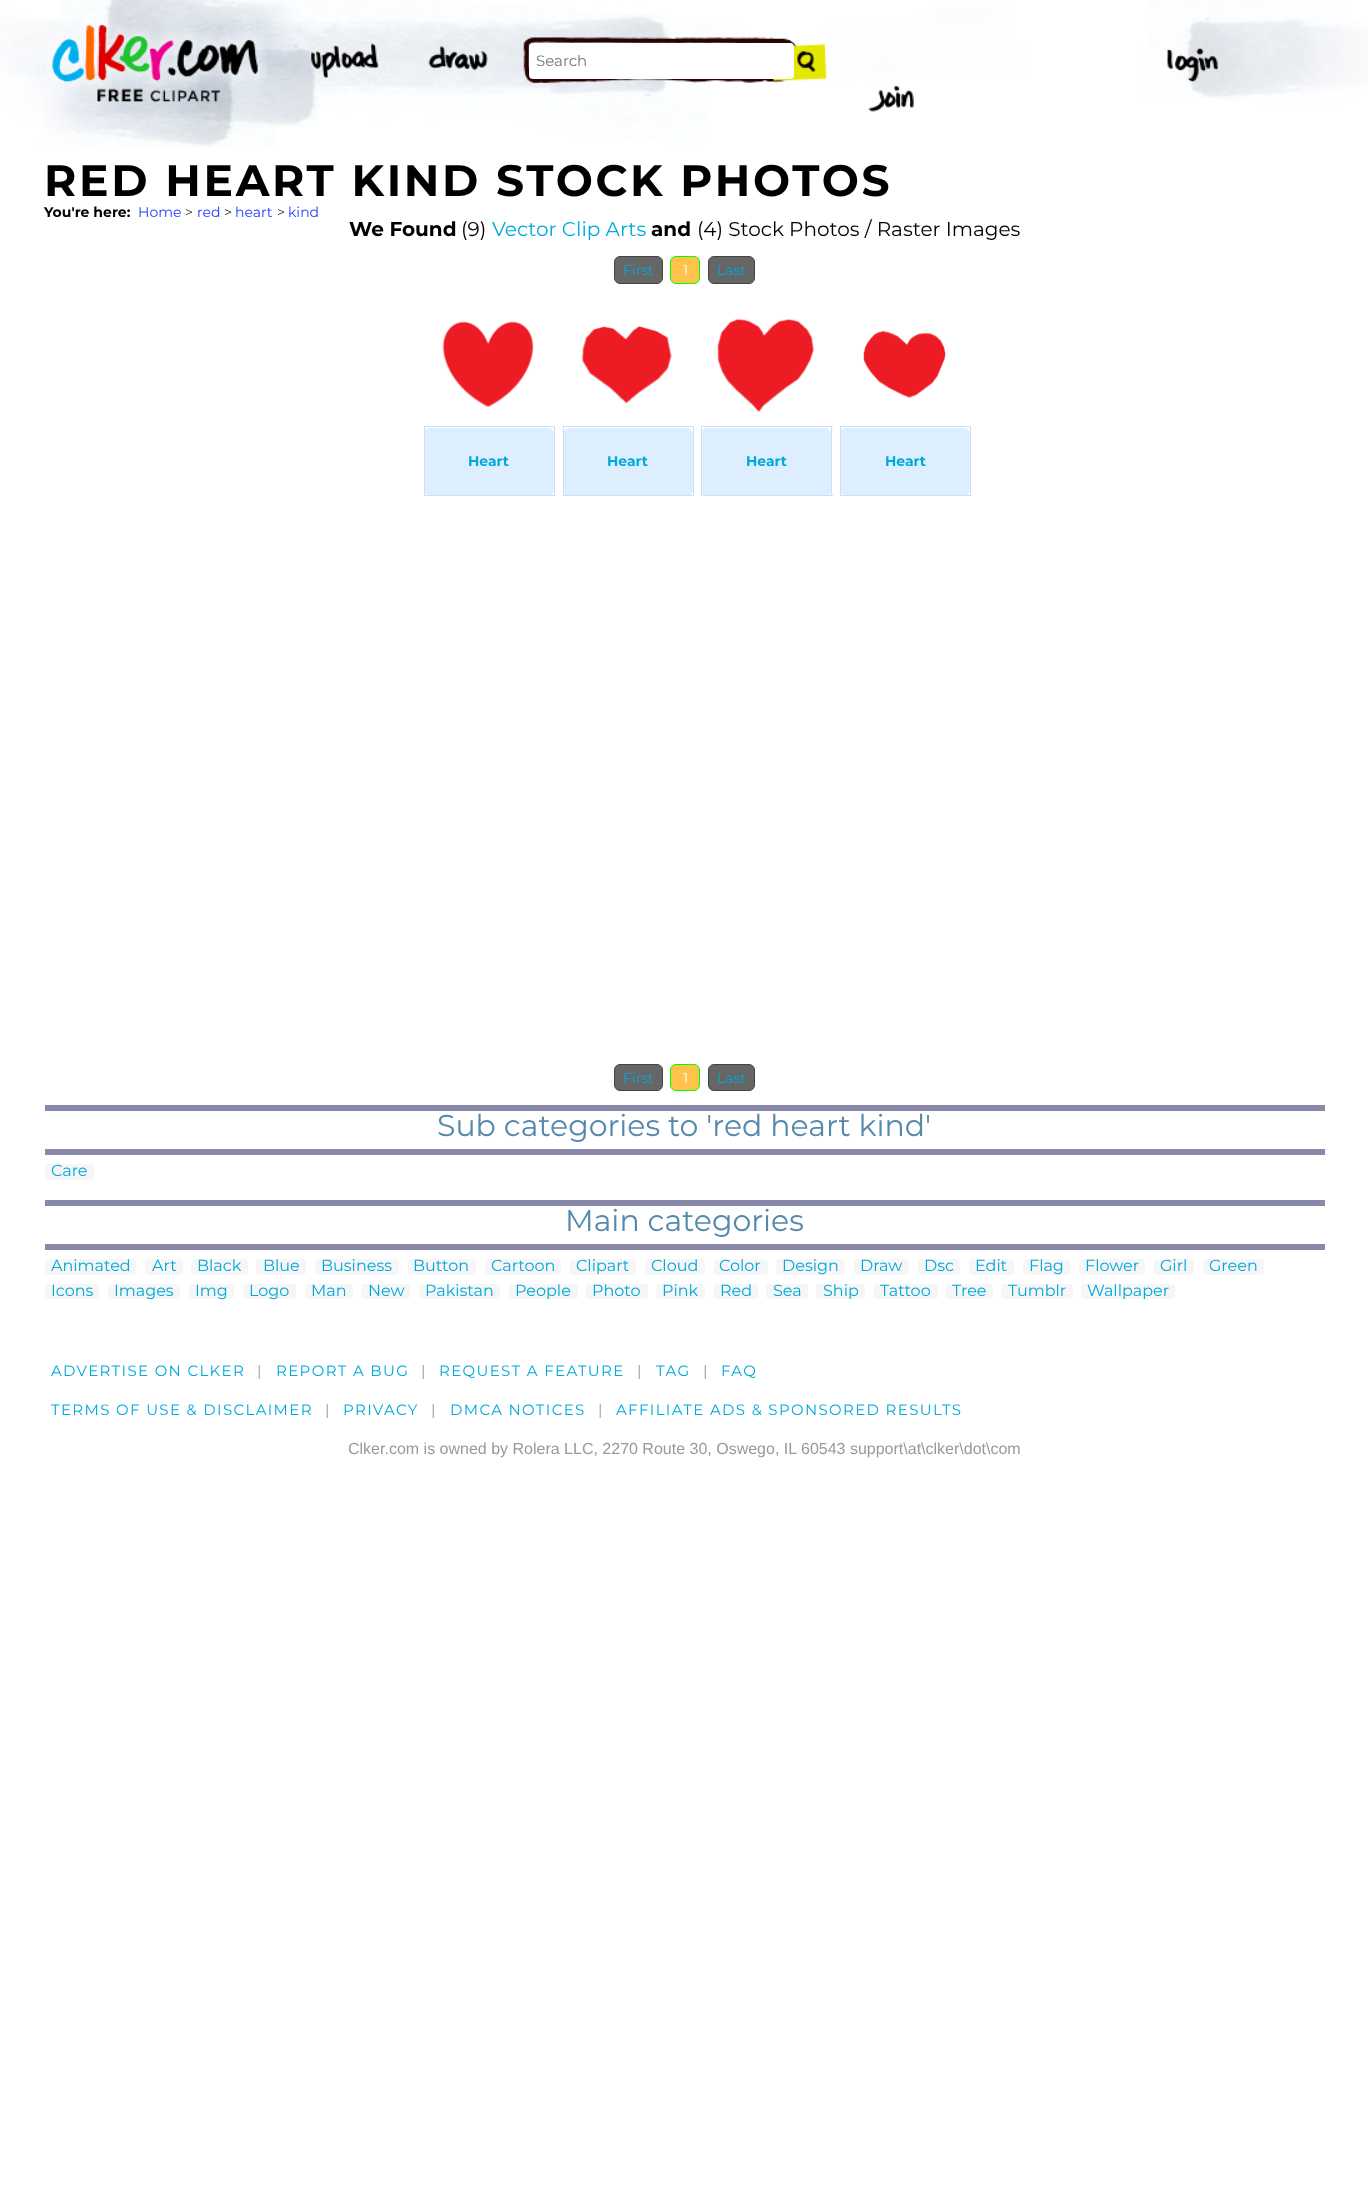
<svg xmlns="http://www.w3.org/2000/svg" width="1368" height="2189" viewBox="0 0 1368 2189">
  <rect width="100%" height="100%" fill="#ffffff"/>
  <image x="0" y="0" width="1368" height="148" href="img1.png"/>
  <image x="46" y="16" width="221" height="86" href="img2.png"/>
  <image x="311" y="43" width="68" height="35" href="img3.png"/>
  <image x="428" y="46" width="60" height="25" href="img4.png"/>
  <image x="523" y="37" width="304" height="47" href="img5.png"/>
  <rect x="529" y="43" width="265" height="36" rx="4" fill="#ffffff"/>
  <text x="536" y="66" font-family="Montserrat" font-size="15" fill="#757575">Search</text>
  <image x="1167" y="48" width="51" height="34" href="img6.png"/>
  <image x="868" y="86" width="46" height="26" href="img7.png"/>
  <text x="44" y="196" font-family="Montserrat" font-size="44" font-weight="bold" letter-spacing="2.65" fill="#000000">RED HEART KIND STOCK PHOTOS</text>
  <text x="44" y="217" font-family="Montserrat" font-size="14" font-weight="bold" fill="#000000">You're here:</text>
  <text x="138" y="217" font-family="Montserrat" font-size="14" fill="#2040ff">Home</text>
  <text x="185" y="217" font-family="Montserrat" font-size="14" fill="#000000">&gt;</text>
  <text x="197" y="217" font-family="Montserrat" font-size="14" fill="#2040ff">red</text>
  <text x="224" y="217" font-family="Montserrat" font-size="14" fill="#000000">&gt;</text>
  <text x="235" y="217" font-family="Montserrat" font-size="14" fill="#2040ff">heart</text>
  <text x="277" y="217" font-family="Montserrat" font-size="14" fill="#000000">&gt;</text>
  <text x="288" y="217" font-family="Montserrat" font-size="14" fill="#2040ff">kind</text>
  <text x="349" y="236" font-family="Montserrat" font-size="20" font-weight="bold" fill="#000000">We Found</text>
  <text x="461" y="236" font-family="Montserrat" font-size="20" fill="#000000">(9)</text>
  <text x="492" y="236" font-family="Montserrat" font-size="20" fill="#00a9db">Vector Clip Arts</text>
  <text x="651" y="236" font-family="Montserrat" font-size="20" font-weight="bold" fill="#000000">and</text>
  <text x="697" y="236" font-family="Montserrat" font-size="20" fill="#000000">(4) Stock Photos / Raster Images</text>
  <rect x="614.5" y="256.5" width="48" height="27" rx="5.5" fill="#666666" stroke="#444444"/>
  <text x="623" y="275" font-family="Montserrat" font-size="14" fill="#00a9db">First</text>
  <rect x="670.5" y="256.5" width="29" height="27" rx="5.5" fill="#ffc34c" stroke="#00ff00"/>
  <text x="683" y="275" font-family="Montserrat" font-size="14" fill="#ffffff">1</text>
  <rect x="708.5" y="256.5" width="46" height="27" rx="5.5" fill="#666666" stroke="#444444"/>
  <text x="717" y="275" font-family="Montserrat" font-size="14" fill="#00a9db">Last</text>
  <image x="442" y="321" width="92" height="86" href="img8.png"/>
  <rect x="424" y="428" width="130" height="68" rx="6" fill="#ddeeff"/>
  <rect x="424" y="426" width="131" height="1" fill="#ccddff"/>
  <rect x="554" y="426" width="1" height="70" fill="#ccddff"/>
  <rect x="424" y="495" width="131" height="1" fill="#ccddff"/>
  <rect x="424" y="426" width="1" height="70" fill="#ccddff"/>
  <text x="468" y="466" font-family="Montserrat" font-size="14" font-weight="bold" fill="#00a9db">Heart</text>
  <image x="581" y="326" width="91" height="78" href="img9.png"/>
  <rect x="563" y="428" width="130" height="68" rx="6" fill="#ddeeff"/>
  <rect x="563" y="426" width="131" height="1" fill="#ccddff"/>
  <rect x="693" y="426" width="1" height="70" fill="#ccddff"/>
  <rect x="563" y="495" width="131" height="1" fill="#ccddff"/>
  <rect x="563" y="426" width="1" height="70" fill="#ccddff"/>
  <text x="607" y="466" font-family="Montserrat" font-size="14" font-weight="bold" fill="#00a9db">Heart</text>
  <image x="717" y="318" width="98" height="94" href="img10.png"/>
  <rect x="701" y="428" width="130" height="68" rx="6" fill="#ddeeff"/>
  <rect x="701" y="426" width="132" height="1" fill="#ccddff"/>
  <rect x="831" y="426" width="1" height="70" fill="#ccddff"/>
  <rect x="701" y="495" width="132" height="1" fill="#ccddff"/>
  <rect x="701" y="426" width="1" height="70" fill="#ccddff"/>
  <text x="746" y="466" font-family="Montserrat" font-size="14" font-weight="bold" fill="#00a9db">Heart</text>
  <image x="863" y="330" width="83" height="69" href="img11.png"/>
  <rect x="840" y="428" width="130" height="68" rx="6" fill="#ddeeff"/>
  <rect x="840" y="426" width="131" height="1" fill="#ccddff"/>
  <rect x="970" y="426" width="1" height="70" fill="#ccddff"/>
  <rect x="840" y="495" width="131" height="1" fill="#ccddff"/>
  <rect x="840" y="426" width="1" height="70" fill="#ccddff"/>
  <text x="885" y="466" font-family="Montserrat" font-size="14" font-weight="bold" fill="#00a9db">Heart</text>
  <rect x="614.5" y="1064.5" width="48" height="26" rx="5.5" fill="#666666" stroke="#444444"/>
  <text x="623" y="1083" font-family="Montserrat" font-size="14" fill="#00a9db">First</text>
  <rect x="670.5" y="1064.5" width="29" height="26" rx="5.5" fill="#ffc34c" stroke="#00ff00"/>
  <text x="683" y="1083" font-family="Montserrat" font-size="14" fill="#ffffff">1</text>
  <rect x="708.5" y="1064.5" width="46" height="26" rx="5.5" fill="#666666" stroke="#444444"/>
  <text x="717" y="1083" font-family="Montserrat" font-size="14" fill="#00a9db">Last</text>
  <rect x="45" y="1105" width="1280" height="6" fill="#8888aa"/>
  <rect x="45" y="1149" width="1280" height="6" fill="#8888aa"/>
  <text x="437" y="1136" font-family="Montserrat" font-size="30" fill="#5588aa">Sub categories to 'red heart kind'</text>
  <rect x="45" y="1164" width="49" height="16" rx="4" fill="#f6f6f6"/>
  <text x="51" y="1176" font-family="Montserrat" font-size="16" fill="#00a9db">Care</text>
  <rect x="45" y="1200" width="1280" height="6" fill="#8888aa"/>
  <rect x="45" y="1244" width="1280" height="6" fill="#8888aa"/>
  <text x="565" y="1231" font-family="Montserrat" font-size="30" fill="#5588aa">Main categories</text>
  <rect x="45" y="1259" width="91" height="16" rx="4" fill="#f6f6f6"/>
  <text x="51" y="1271" font-family="Montserrat" font-size="16" fill="#00a9db">Animated</text>
  <rect x="145" y="1259" width="38" height="16" rx="4" fill="#f6f6f6"/>
  <text x="152" y="1271" font-family="Montserrat" font-size="16" fill="#00a9db">Art</text>
  <rect x="191" y="1259" width="57" height="16" rx="4" fill="#f6f6f6"/>
  <text x="197" y="1271" font-family="Montserrat" font-size="16" fill="#00a9db">Black</text>
  <rect x="256" y="1259" width="50" height="16" rx="4" fill="#f6f6f6"/>
  <text x="263" y="1271" font-family="Montserrat" font-size="16" fill="#00a9db">Blue</text>
  <rect x="315" y="1259" width="84" height="16" rx="4" fill="#f6f6f6"/>
  <text x="321" y="1271" font-family="Montserrat" font-size="16" fill="#00a9db">Business</text>
  <rect x="408" y="1259" width="68" height="16" rx="4" fill="#f6f6f6"/>
  <text x="413" y="1271" font-family="Montserrat" font-size="16" fill="#00a9db">Button</text>
  <rect x="485" y="1259" width="76" height="16" rx="4" fill="#f6f6f6"/>
  <text x="491" y="1271" font-family="Montserrat" font-size="16" fill="#00a9db">Cartoon</text>
  <rect x="570" y="1259" width="66" height="16" rx="4" fill="#f6f6f6"/>
  <text x="576" y="1271" font-family="Montserrat" font-size="16" fill="#00a9db">Clipart</text>
  <rect x="645" y="1259" width="60" height="16" rx="4" fill="#f6f6f6"/>
  <text x="651" y="1271" font-family="Montserrat" font-size="16" fill="#00a9db">Cloud</text>
  <rect x="714" y="1259" width="54" height="16" rx="4" fill="#f6f6f6"/>
  <text x="719" y="1271" font-family="Montserrat" font-size="16" fill="#00a9db">Color</text>
  <rect x="776" y="1259" width="69" height="16" rx="4" fill="#f6f6f6"/>
  <text x="782" y="1271" font-family="Montserrat" font-size="16" fill="#00a9db">Design</text>
  <rect x="854" y="1259" width="55" height="16" rx="4" fill="#f6f6f6"/>
  <text x="860" y="1271" font-family="Montserrat" font-size="16" fill="#00a9db">Draw</text>
  <rect x="918" y="1259" width="42" height="16" rx="4" fill="#f6f6f6"/>
  <text x="924" y="1271" font-family="Montserrat" font-size="16" fill="#00a9db">Dsc</text>
  <rect x="969" y="1259" width="45" height="16" rx="4" fill="#f6f6f6"/>
  <text x="975" y="1271" font-family="Montserrat" font-size="16" fill="#00a9db">Edit</text>
  <rect x="1023" y="1259" width="47" height="16" rx="4" fill="#f6f6f6"/>
  <text x="1029" y="1271" font-family="Montserrat" font-size="16" fill="#00a9db">Flag</text>
  <rect x="1079" y="1259" width="66" height="16" rx="4" fill="#f6f6f6"/>
  <text x="1085" y="1271" font-family="Montserrat" font-size="16" fill="#00a9db">Flower</text>
  <rect x="1154" y="1259" width="40" height="16" rx="4" fill="#f6f6f6"/>
  <text x="1160" y="1271" font-family="Montserrat" font-size="16" fill="#00a9db">Girl</text>
  <rect x="1203" y="1259" width="61" height="16" rx="4" fill="#f6f6f6"/>
  <text x="1209" y="1271" font-family="Montserrat" font-size="16" fill="#00a9db">Green</text>
  <rect x="45" y="1284" width="54" height="15" rx="4" fill="#f6f6f6"/>
  <text x="51" y="1296" font-family="Montserrat" font-size="16" fill="#00a9db">Icons</text>
  <rect x="108" y="1284" width="72" height="15" rx="4" fill="#f6f6f6"/>
  <text x="114" y="1296" font-family="Montserrat" font-size="16" fill="#00a9db">Images</text>
  <rect x="189" y="1284" width="45" height="15" rx="4" fill="#f6f6f6"/>
  <text x="195" y="1296" font-family="Montserrat" font-size="16" fill="#00a9db">Img</text>
  <rect x="243" y="1284" width="53" height="15" rx="4" fill="#f6f6f6"/>
  <text x="249" y="1296" font-family="Montserrat" font-size="16" fill="#00a9db">Logo</text>
  <rect x="305" y="1284" width="48" height="15" rx="4" fill="#f6f6f6"/>
  <text x="311" y="1296" font-family="Montserrat" font-size="16" fill="#00a9db">Man</text>
  <rect x="361" y="1284" width="49" height="15" rx="4" fill="#f6f6f6"/>
  <text x="368" y="1296" font-family="Montserrat" font-size="16" fill="#00a9db">New</text>
  <rect x="419" y="1284" width="81" height="15" rx="4" fill="#f6f6f6"/>
  <text x="425" y="1296" font-family="Montserrat" font-size="16" fill="#00a9db">Pakistan</text>
  <rect x="509" y="1284" width="69" height="15" rx="4" fill="#f6f6f6"/>
  <text x="515" y="1296" font-family="Montserrat" font-size="16" fill="#00a9db">People</text>
  <rect x="586" y="1284" width="62" height="15" rx="4" fill="#f6f6f6"/>
  <text x="592" y="1296" font-family="Montserrat" font-size="16" fill="#00a9db">Photo</text>
  <rect x="656" y="1284" width="49" height="15" rx="4" fill="#f6f6f6"/>
  <text x="662" y="1296" font-family="Montserrat" font-size="16" fill="#00a9db">Pink</text>
  <rect x="714" y="1284" width="44" height="15" rx="4" fill="#f6f6f6"/>
  <text x="720" y="1296" font-family="Montserrat" font-size="16" fill="#00a9db">Red</text>
  <rect x="766" y="1284" width="42" height="15" rx="4" fill="#f6f6f6"/>
  <text x="773" y="1296" font-family="Montserrat" font-size="16" fill="#00a9db">Sea</text>
  <rect x="816" y="1284" width="49" height="15" rx="4" fill="#f6f6f6"/>
  <text x="823" y="1296" font-family="Montserrat" font-size="16" fill="#00a9db">Ship</text>
  <rect x="874" y="1284" width="64" height="15" rx="4" fill="#f6f6f6"/>
  <text x="880" y="1296" font-family="Montserrat" font-size="16" fill="#00a9db">Tattoo</text>
  <rect x="946" y="1284" width="47" height="15" rx="4" fill="#f6f6f6"/>
  <text x="952" y="1296" font-family="Montserrat" font-size="16" fill="#00a9db">Tree</text>
  <rect x="1001" y="1284" width="72" height="15" rx="4" fill="#f6f6f6"/>
  <text x="1008" y="1296" font-family="Montserrat" font-size="16" fill="#00a9db">Tumblr</text>
  <rect x="1081" y="1284" width="94" height="15" rx="4" fill="#f6f6f6"/>
  <text x="1087" y="1296" font-family="Montserrat" font-size="16" fill="#00a9db">Wallpaper</text>
  <text x="51" y="1376" font-family="Montserrat" font-size="15" letter-spacing="1.35" fill="#00a9db">ADVERTISE ON CLKER</text>
  <text x="257" y="1376" font-family="Montserrat" font-size="15" letter-spacing="1.35" fill="#999999">|</text>
  <text x="276" y="1376" font-family="Montserrat" font-size="15" letter-spacing="1.35" fill="#00a9db">REPORT A BUG</text>
  <text x="421" y="1376" font-family="Montserrat" font-size="15" letter-spacing="1.35" fill="#999999">|</text>
  <text x="439" y="1376" font-family="Montserrat" font-size="15" letter-spacing="1.35" fill="#00a9db">REQUEST A FEATURE</text>
  <text x="637" y="1376" font-family="Montserrat" font-size="15" letter-spacing="1.35" fill="#999999">|</text>
  <text x="656" y="1376" font-family="Montserrat" font-size="15" letter-spacing="1.35" fill="#00a9db">TAG</text>
  <text x="703" y="1376" font-family="Montserrat" font-size="15" letter-spacing="1.35" fill="#999999">|</text>
  <text x="721" y="1376" font-family="Montserrat" font-size="15" letter-spacing="1.35" fill="#00a9db">FAQ</text>
  <text x="51" y="1415" font-family="Montserrat" font-size="15" letter-spacing="1.35" fill="#00a9db">TERMS OF USE &amp; DISCLAIMER</text>
  <text x="325" y="1415" font-family="Montserrat" font-size="15" letter-spacing="1.35" fill="#999999">|</text>
  <text x="343" y="1415" font-family="Montserrat" font-size="15" letter-spacing="1.35" fill="#00a9db">PRIVACY</text>
  <text x="431" y="1415" font-family="Montserrat" font-size="15" letter-spacing="1.35" fill="#999999">|</text>
  <text x="450" y="1415" font-family="Montserrat" font-size="15" letter-spacing="1.35" fill="#00a9db">DMCA NOTICES</text>
  <text x="598" y="1415" font-family="Montserrat" font-size="15" letter-spacing="1.35" fill="#999999">|</text>
  <text x="616" y="1415" font-family="Montserrat" font-size="15" letter-spacing="1.35" fill="#00a9db">AFFILIATE ADS &amp; SPONSORED RESULTS</text>
  <text x="348" y="1454" font-family="Liberation Sans" font-size="16" fill="#999999">Clker.com is owned by Rolera LLC, 2270 Route 30, Oswego, IL 60543 support\at\clker\dot\com</text>
</svg>
